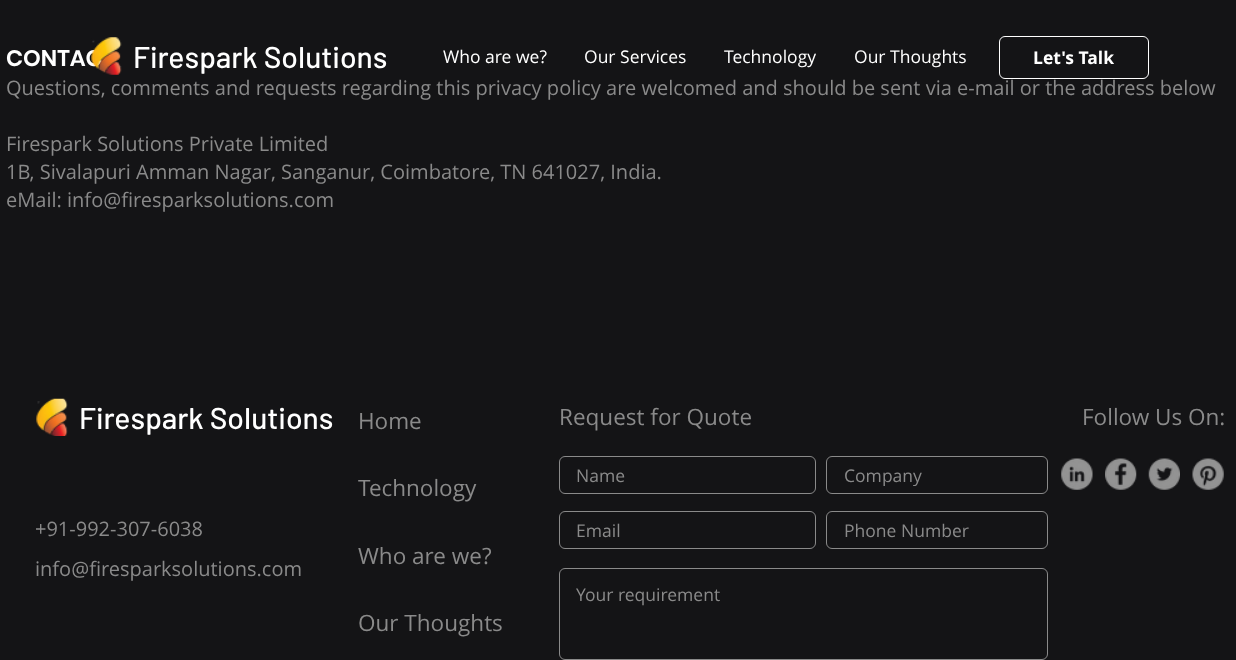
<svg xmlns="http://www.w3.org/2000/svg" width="1236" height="660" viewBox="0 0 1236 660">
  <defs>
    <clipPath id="clip1"><rect x="844" y="463" width="199" height="23"/></clipPath>
  </defs>
  <rect width="100%" height="100%" fill="#141416"/>
  <text x="6" y="66" font-family="Poppins" font-size="22.5" font-weight="600" fill="#ffffff">CONTAC</text>
  <image x="91" y="37" width="31" height="38" href="img1.png"/>
  <text x="133" y="68" font-family="Barlow" font-size="30" font-weight="500" fill="#ffffff">Firespark Solutions</text>
  <text x="443" y="63" font-family="Open Sans" font-size="17.5" fill="#ffffff">Who are we?</text>
  <text x="584" y="63" font-family="Open Sans" font-size="17.5" fill="#ffffff">Our Services</text>
  <text x="724" y="63" font-family="Open Sans" font-size="17.5" fill="#ffffff">Technology</text>
  <text x="854" y="63" font-family="Open Sans" font-size="17.5" fill="#ffffff">Our Thoughts</text>
  <rect x="999.5" y="36.5" width="149" height="42" rx="5.5" fill="none" stroke="#ffffff"/>
  <text x="1033" y="64" font-family="Open Sans" font-size="17.5" font-weight="bold" fill="#ffffff">Let's Talk</text>
  <text x="6" y="95" font-family="Open Sans" font-size="20" fill="#8a8a8a">Questions, comments and requests regarding this privacy policy are welcomed and should be sent via e-mail or the address below</text>
  <text x="6" y="151" font-family="Open Sans" font-size="20" fill="#8a8a8a">Firespark Solutions Private Limited</text>
  <text x="6" y="179" font-family="Open Sans" font-size="20" fill="#8a8a8a">1B, Sivalapuri Amman Nagar, Sanganur, Coimbatore, TN 641027, India.</text>
  <text x="6" y="207" font-family="Open Sans" font-size="20" fill="#8a8a8a">eMail: info@firesparksolutions.com</text>
  <image x="36" y="398" width="32" height="38" href="img2.png"/>
  <text x="79" y="429" font-family="Barlow" font-size="30" font-weight="500" fill="#ffffff">Firespark Solutions</text>
  <text x="35" y="536" font-family="Open Sans" font-size="20" fill="#8a8a8a">+91-992-307-6038</text>
  <text x="35" y="576" font-family="Open Sans" font-size="20" fill="#8a8a8a">info@firesparksolutions.com</text>
  <text x="358" y="429" font-family="Open Sans" font-size="22.5" fill="#8a8a8a">Home</text>
  <text x="358" y="496" font-family="Open Sans" font-size="22.5" fill="#8a8a8a">Technology</text>
  <text x="358" y="564" font-family="Open Sans" font-size="22.5" fill="#8a8a8a">Who are we?</text>
  <text x="358" y="631" font-family="Open Sans" font-size="22.5" fill="#8a8a8a">Our Thoughts</text>
  <text x="559" y="425" font-family="Open Sans" font-size="22.5" fill="#8a8a8a">Request for Quote</text>
  <rect x="559.5" y="456.5" width="256" height="37" rx="5.5" fill="none" stroke="#8a8a8a"/>
  <text x="576" y="482" font-family="Open Sans" font-size="17.5" fill="#8a8a8a">Name</text>
  <rect x="826.5" y="456.5" width="221" height="37" rx="5.5" fill="none" stroke="#8a8a8a"/>
  <g clip-path="url(#clip1)">
    <text x="844" y="482" font-family="Open Sans" font-size="17.5" fill="#8a8a8a">Company</text>
  </g>
  <rect x="559.5" y="511.5" width="256" height="37" rx="5.5" fill="none" stroke="#8a8a8a"/>
  <text x="576" y="537" font-family="Open Sans" font-size="17.5" fill="#8a8a8a">Email</text>
  <rect x="826.5" y="511.5" width="221" height="37" rx="5.5" fill="none" stroke="#8a8a8a"/>
  <text x="844" y="537" font-family="Open Sans" font-size="17.5" fill="#8a8a8a">Phone Number</text>
  <rect x="559.5" y="568.5" width="488" height="91" rx="5.5" fill="none" stroke="#8a8a8a"/>
  <text x="576" y="601" font-family="Open Sans" font-size="17.5" fill="#8a8a8a">Your requirement</text>
  <text x="1082" y="425" font-family="Open Sans" font-size="22.5" fill="#8a8a8a">Follow Us On:</text>
  <image x="1061" y="458" width="32" height="32" href="img3.png"/>
  <image x="1105" y="458" width="32" height="32" href="img4.png"/>
  <image x="1148" y="458" width="32" height="32" href="img5.png"/>
  <image x="1192" y="458" width="32" height="32" href="img6.png"/>
</svg>
